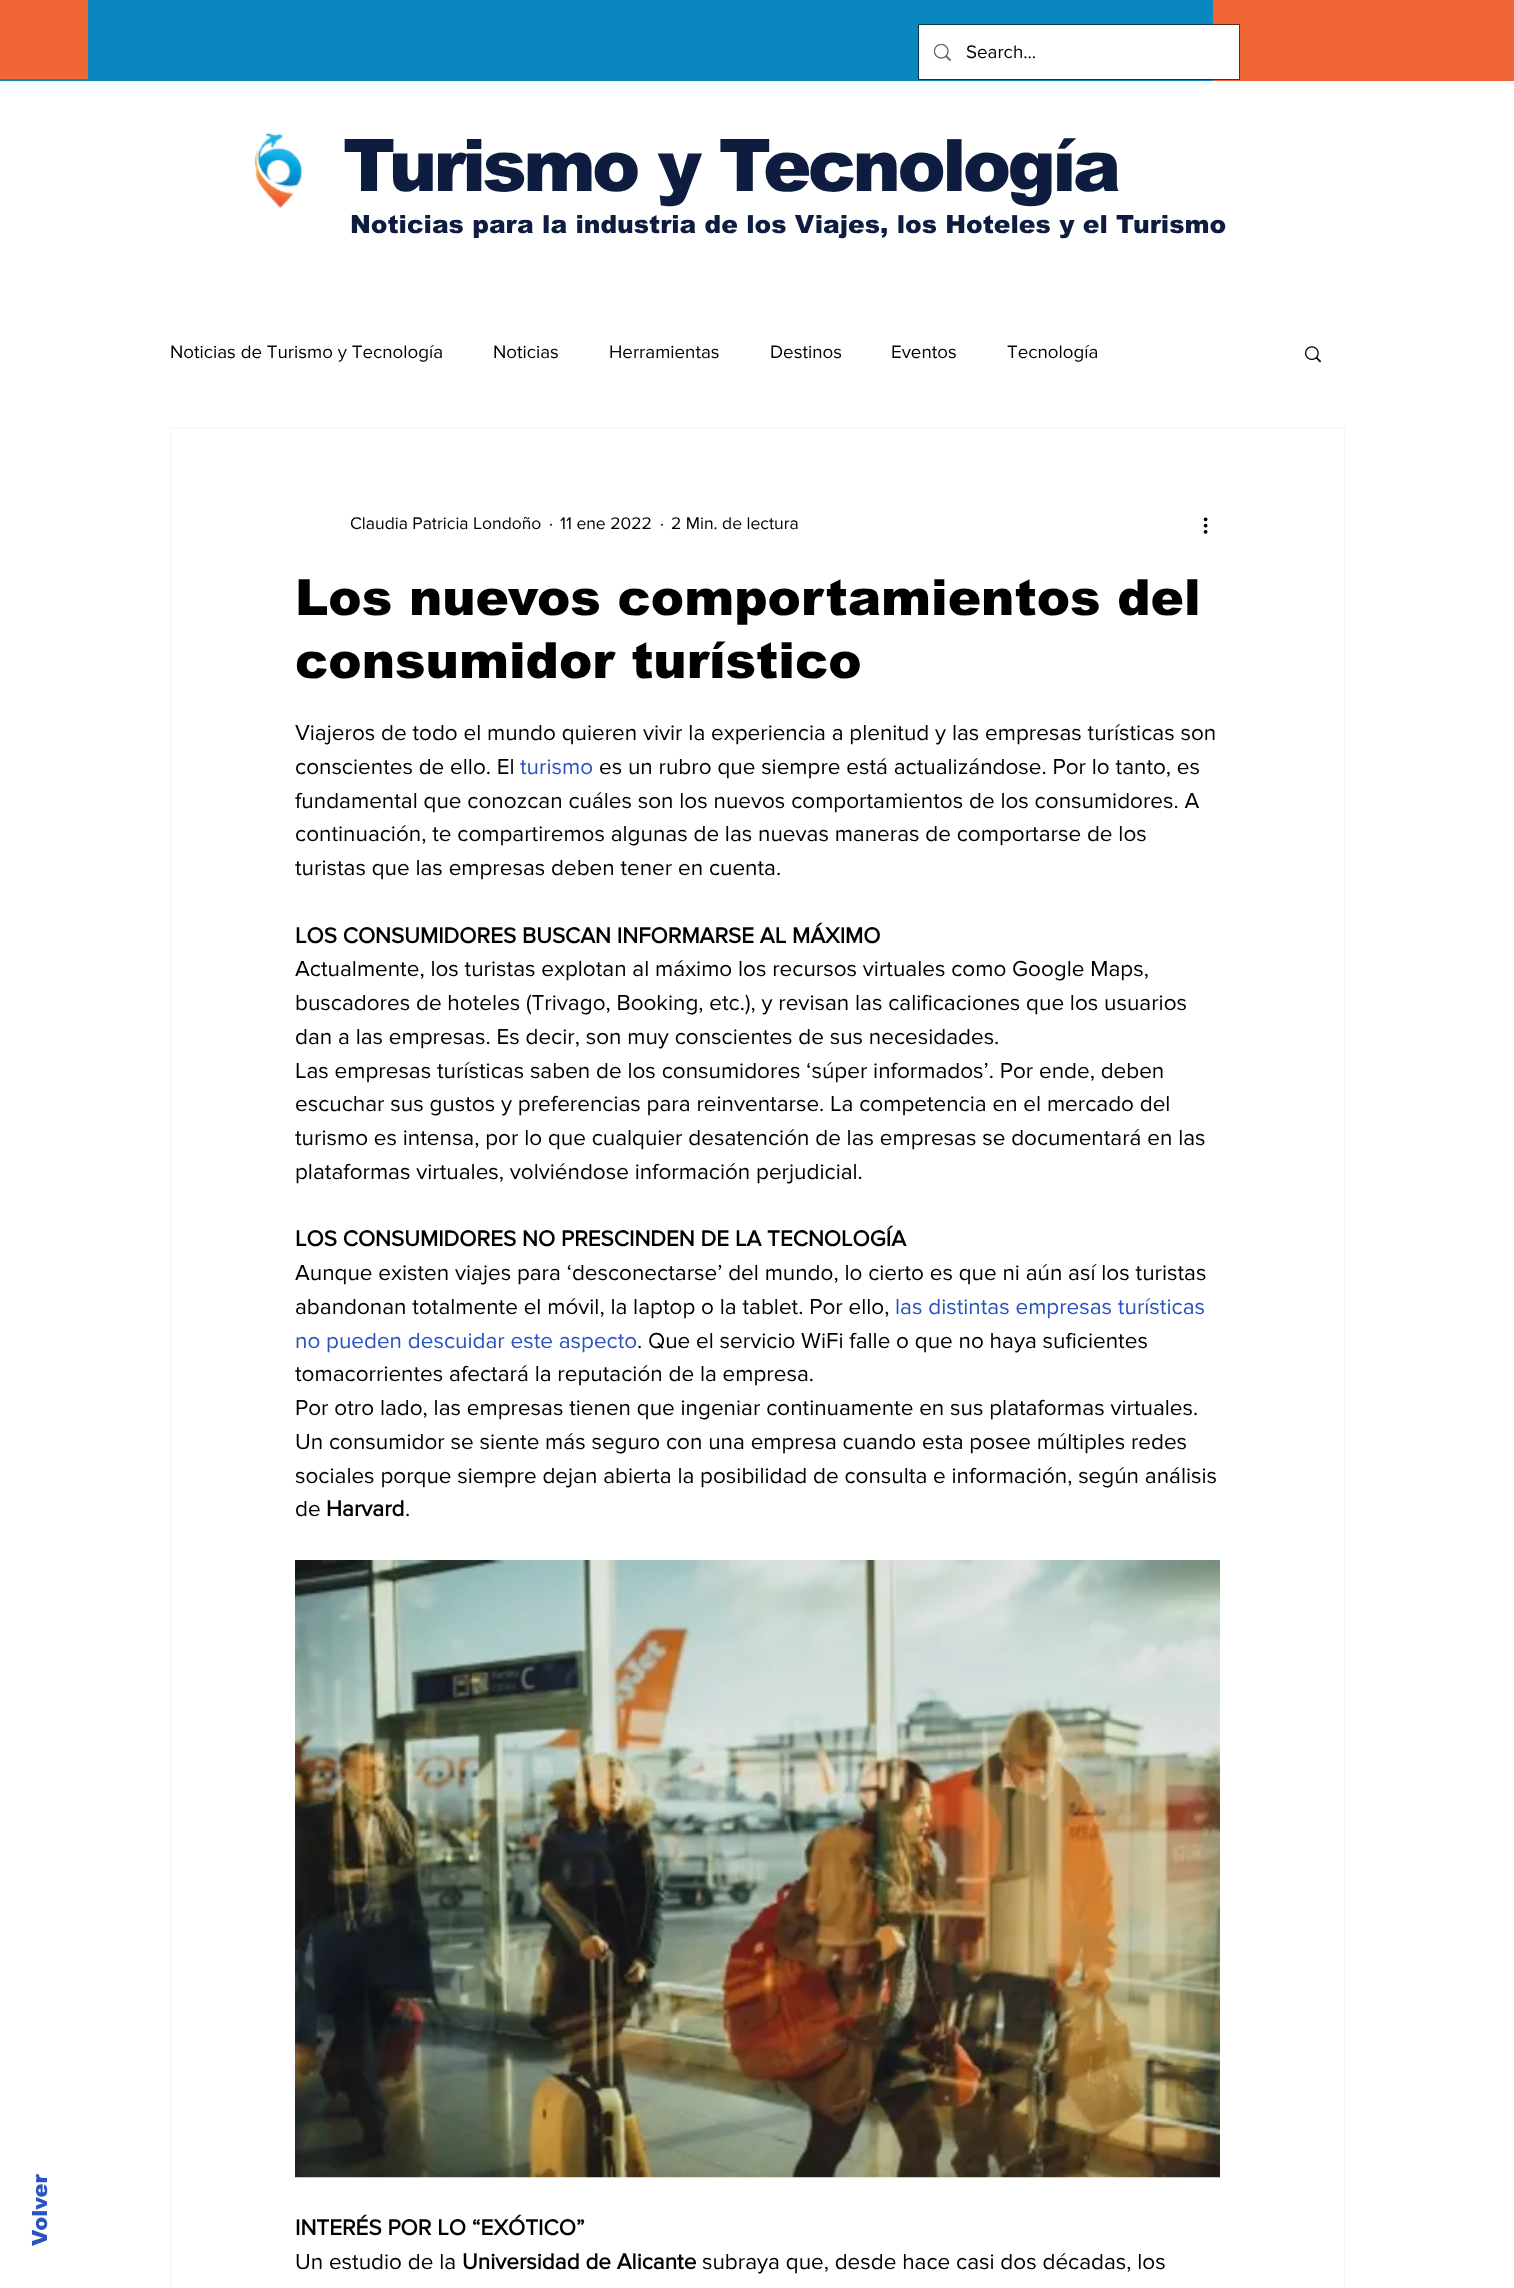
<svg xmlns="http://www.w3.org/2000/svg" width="1514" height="2288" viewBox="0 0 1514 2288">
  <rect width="100%" height="100%" fill="#ffffff"/>
  <rect x="0" y="0" width="1213" height="81" fill="#0a87be"/>
  <rect x="0" y="0" width="88" height="79" fill="#f06635"/>
  <rect x="1213" y="0" width="301" height="81" fill="#f06635"/>
  <rect x="918.5" y="24.5" width="321" height="55" fill="none" stroke="#000000" stroke-opacity="0.6"/>
  <rect x="919" y="25" width="320" height="54" fill="#ffffff"/>
  <image x="934" y="44" width="17" height="17" href="img1.png"/>
  <text x="966" y="58" font-family="'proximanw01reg'" font-size="18.75" fill="#000000">Search...</text>
  <image x="254" y="133" width="49" height="75" href="img2.png"/>
  <text x="343" y="191" font-family="arial" font-size="72.5" font-weight="900" letter-spacing="-3.6" fill="#0e1c40">Turismo y Tecnología</text>
  <text x="350" y="233" font-family="arial" font-size="25" font-weight="900" fill="#0e1c40">Noticias para la industria de los Viajes, los Hoteles y el Turismo</text>
  <text x="47" y="2246" transform="rotate(-90 47 2246)" font-family="arial" font-size="21" font-weight="900" fill="#2a53c1">Volver</text>
  <text x="170" y="358" font-family="'proximanw01reg'" font-size="18.75" fill="#000000">Noticias de Turismo y Tecnología</text>
  <text x="493" y="358" font-family="'proximanw01reg'" font-size="18.75" fill="#000000">Noticias</text>
  <text x="609" y="358" font-family="'proximanw01reg'" font-size="18.75" fill="#000000">Herramientas</text>
  <text x="770" y="358" font-family="'proximanw01reg'" font-size="18.75" fill="#000000">Destinos</text>
  <text x="891" y="358" font-family="'proximanw01reg'" font-size="18.75" fill="#000000">Eventos</text>
  <text x="1007" y="358" font-family="'proximanw01reg'" font-size="18.75" fill="#000000">Tecnología</text>
  <image x="1305" y="346" width="17" height="17" href="img3.png"/>
  <rect x="170.5" y="428.5" width="1174" height="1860" fill="none" stroke="#f5f5f5"/>
  <text x="350" y="529" font-family="'proximanw01reg'" font-size="17.5" fill="#000000">Claudia Patricia Londoño</text>
  <text x="549" y="529" font-family="'proximanw01reg'" font-size="17.5" fill="#000000">·</text>
  <text x="560" y="529" font-family="'proximanw01reg'" font-size="17.5" fill="#000000">11 ene 2022</text>
  <text x="660" y="529" font-family="'proximanw01reg'" font-size="17.5" fill="#000000">·</text>
  <text x="671" y="529" font-family="'proximanw01reg'" font-size="17.5" fill="#000000">2 Min. de lectura</text>
  <image x="1203" y="517" width="5" height="17" href="img4.png"/>
  <text x="295" y="615" font-family="arial" font-size="50" font-weight="900" fill="#000000">Los nuevos comportamientos del</text>
  <text x="295" y="678" font-family="arial" font-size="50" font-weight="900" fill="#000000">consumidor turístico</text>
  <text x="295" y="740" font-family="'proximanw01reg'" font-size="22.5" fill="#000000">Viajeros de todo el mundo quieren vivir la experiencia a plenitud y las empresas turísticas son</text>
  <text x="295" y="774" font-family="'proximanw01reg'" font-size="22.5" fill="#000000">conscientes de ello. El</text>
  <text x="520" y="774" font-family="'proximanw01reg'" font-size="22.5" fill="#2a53c1">turismo</text>
  <text x="599" y="774" font-family="'proximanw01reg'" font-size="22.5" fill="#000000">es un rubro que siempre está actualizándose. Por lo tanto, es</text>
  <text x="295" y="808" font-family="'proximanw01reg'" font-size="22.5" fill="#000000">fundamental que conozcan cuáles son los nuevos comportamientos de los consumidores. A</text>
  <text x="295" y="841" font-family="'proximanw01reg'" font-size="22.5" fill="#000000">continuación, te compartiremos algunas de las nuevas maneras de comportarse de los</text>
  <text x="295" y="875" font-family="'proximanw01reg'" font-size="22.5" fill="#000000">turistas que las empresas deben tener en cuenta.</text>
  <text x="295" y="943" font-family="'proximanw01reg'" font-size="22.5" font-weight="bold" fill="#000000">LOS CONSUMIDORES BUSCAN INFORMARSE AL MÁXIMO</text>
  <text x="295" y="976" font-family="'proximanw01reg'" font-size="22.5" fill="#000000">Actualmente, los turistas explotan al máximo los recursos virtuales como Google Maps,</text>
  <text x="295" y="1010" font-family="'proximanw01reg'" font-size="22.5" fill="#000000">buscadores de hoteles (Trivago, Booking, etc.), y revisan las calificaciones que los usuarios</text>
  <text x="295" y="1044" font-family="'proximanw01reg'" font-size="22.5" fill="#000000">dan a las empresas. Es decir, son muy conscientes de sus necesidades.</text>
  <text x="295" y="1078" font-family="'proximanw01reg'" font-size="22.5" fill="#000000">Las empresas turísticas saben de los consumidores ‘súper informados’. Por ende, deben</text>
  <text x="295" y="1111" font-family="'proximanw01reg'" font-size="22.5" fill="#000000">escuchar sus gustos y preferencias para reinventarse. La competencia en el mercado del</text>
  <text x="295" y="1145" font-family="'proximanw01reg'" font-size="22.5" fill="#000000">turismo es intensa, por lo que cualquier desatención de las empresas se documentará en las</text>
  <text x="295" y="1179" font-family="'proximanw01reg'" font-size="22.5" fill="#000000">plataformas virtuales, volviéndose información perjudicial.</text>
  <text x="295" y="1246" font-family="'proximanw01reg'" font-size="22.5" font-weight="bold" fill="#000000">LOS CONSUMIDORES NO PRESCINDEN DE LA TECNOLOGÍA</text>
  <text x="295" y="1280" font-family="'proximanw01reg'" font-size="22.5" fill="#000000">Aunque existen viajes para ‘desconectarse’ del mundo, lo cierto es que ni aún así los turistas</text>
  <text x="295" y="1314" font-family="'proximanw01reg'" font-size="22.5" fill="#000000">abandonan totalmente el móvil, la laptop o la tablet. Por ello,</text>
  <text x="895" y="1314" font-family="'proximanw01reg'" font-size="22.5" fill="#2a53c1">las distintas empresas turísticas</text>
  <text x="295" y="1348" font-family="'proximanw01reg'" font-size="22.5" fill="#2a53c1">no pueden descuidar este aspecto</text>
  <text x="637" y="1348" font-family="'proximanw01reg'" font-size="22.5" fill="#000000">. Que el servicio WiFi falle o que no haya suficientes</text>
  <text x="295" y="1381" font-family="'proximanw01reg'" font-size="22.5" fill="#000000">tomacorrientes afectará la reputación de la empresa.</text>
  <text x="295" y="1415" font-family="'proximanw01reg'" font-size="22.5" fill="#000000">Por otro lado, las empresas tienen que ingeniar continuamente en sus plataformas virtuales.</text>
  <text x="295" y="1449" font-family="'proximanw01reg'" font-size="22.5" fill="#000000">Un consumidor se siente más seguro con una empresa cuando esta posee múltiples redes</text>
  <text x="295" y="1483" font-family="'proximanw01reg'" font-size="22.5" fill="#000000">sociales porque siempre dejan abierta la posibilidad de consulta e información, según análisis</text>
  <text x="295" y="1516" font-family="'proximanw01reg'" font-size="22.5" fill="#000000">de</text>
  <text x="326" y="1516" font-family="'proximanw01reg'" font-size="22.5" font-weight="bold" fill="#000000">Harvard</text>
  <text x="405" y="1516" font-family="'proximanw01reg'" font-size="22.5" fill="#000000">.</text>
  <image x="295" y="1560" width="925" height="618" href="img5.png"/>
  <text x="295" y="2235" font-family="'proximanw01reg'" font-size="22.5" font-weight="bold" fill="#000000">INTERÉS POR LO “EXÓTICO”</text>
  <text x="295" y="2269" font-family="'proximanw01reg'" font-size="22.5" fill="#000000">Un estudio de la</text>
  <text x="462" y="2269" font-family="'proximanw01reg'" font-size="22.5" font-weight="bold" fill="#000000">Universidad de Alicante</text>
  <text x="702" y="2269" font-family="'proximanw01reg'" font-size="22.5" fill="#000000">subraya que, desde hace casi dos décadas, los</text>
</svg>
